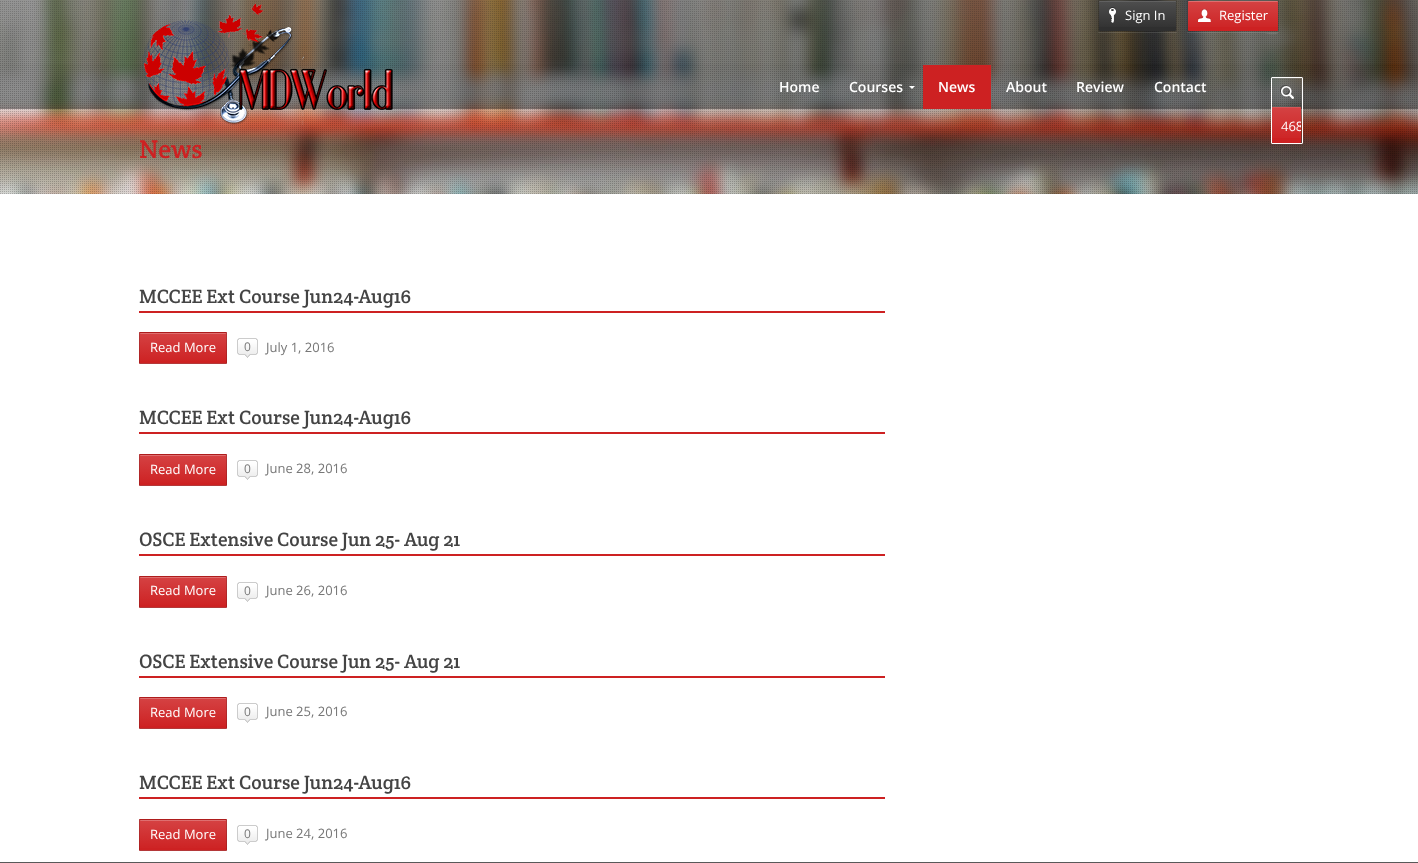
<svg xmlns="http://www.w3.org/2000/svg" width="1418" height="863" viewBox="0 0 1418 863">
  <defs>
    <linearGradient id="g1" gradientUnits="userSpaceOnUse" x1="709" y1="0" x2="709" y2="81"><stop offset="0" stop-color="#ffffff" stop-opacity="0.1"/><stop offset="1" stop-color="#ffffff" stop-opacity="0"/></linearGradient>
    <linearGradient id="g2" gradientUnits="userSpaceOnUse" x1="1138" y1="1" x2="1138" y2="31"><stop offset="0" stop-color="#ffffff" stop-opacity="0.15"/><stop offset="1" stop-color="#ffffff" stop-opacity="0"/></linearGradient>
    <linearGradient id="g3" gradientUnits="userSpaceOnUse" x1="1233" y1="1" x2="1233" y2="31"><stop offset="0" stop-color="#ffffff" stop-opacity="0.15"/><stop offset="1" stop-color="#ffffff" stop-opacity="0"/></linearGradient>
    <linearGradient id="g4" gradientUnits="userSpaceOnUse" x1="1287" y1="78" x2="1287" y2="107"><stop offset="0" stop-color="#ffffff" stop-opacity="0.15"/><stop offset="1" stop-color="#ffffff" stop-opacity="0"/></linearGradient>
    <linearGradient id="g5" gradientUnits="userSpaceOnUse" x1="1287" y1="107" x2="1287" y2="143"><stop offset="0" stop-color="#ffffff" stop-opacity="0.15"/><stop offset="1" stop-color="#ffffff" stop-opacity="0"/></linearGradient>
    <clipPath id="clip1"><rect x="1272" y="107" width="29" height="36" rx="1"/></clipPath>
    <linearGradient id="g6" gradientUnits="userSpaceOnUse" x1="183" y1="333" x2="183" y2="363"><stop offset="0" stop-color="#d54243"/><stop offset="1" stop-color="#cd2122"/></linearGradient>
    <linearGradient id="g7" gradientUnits="userSpaceOnUse" x1="183" y1="363" x2="183" y2="393"><stop offset="0" stop-color="#ffffff" stop-opacity="0.15"/><stop offset="1" stop-color="#ffffff" stop-opacity="0"/></linearGradient>
    <linearGradient id="g8" gradientUnits="userSpaceOnUse" x1="183" y1="455" x2="183" y2="485"><stop offset="0" stop-color="#d54243"/><stop offset="1" stop-color="#cd2122"/></linearGradient>
    <linearGradient id="g9" gradientUnits="userSpaceOnUse" x1="183" y1="485" x2="183" y2="515"><stop offset="0" stop-color="#ffffff" stop-opacity="0.15"/><stop offset="1" stop-color="#ffffff" stop-opacity="0"/></linearGradient>
    <linearGradient id="g10" gradientUnits="userSpaceOnUse" x1="183" y1="577" x2="183" y2="607"><stop offset="0" stop-color="#d54243"/><stop offset="1" stop-color="#cd2122"/></linearGradient>
    <linearGradient id="g11" gradientUnits="userSpaceOnUse" x1="183" y1="607" x2="183" y2="637"><stop offset="0" stop-color="#ffffff" stop-opacity="0.15"/><stop offset="1" stop-color="#ffffff" stop-opacity="0"/></linearGradient>
    <linearGradient id="g12" gradientUnits="userSpaceOnUse" x1="183" y1="698" x2="183" y2="728"><stop offset="0" stop-color="#d54243"/><stop offset="1" stop-color="#cd2122"/></linearGradient>
    <linearGradient id="g13" gradientUnits="userSpaceOnUse" x1="183" y1="728" x2="183" y2="758"><stop offset="0" stop-color="#ffffff" stop-opacity="0.15"/><stop offset="1" stop-color="#ffffff" stop-opacity="0"/></linearGradient>
    <linearGradient id="g14" gradientUnits="userSpaceOnUse" x1="183" y1="820" x2="183" y2="850"><stop offset="0" stop-color="#d54243"/><stop offset="1" stop-color="#cd2122"/></linearGradient>
    <linearGradient id="g15" gradientUnits="userSpaceOnUse" x1="183" y1="850" x2="183" y2="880"><stop offset="0" stop-color="#ffffff" stop-opacity="0.15"/><stop offset="1" stop-color="#ffffff" stop-opacity="0"/></linearGradient>
  </defs>
  <rect width="100%" height="100%" fill="#ffffff"/>
  <image x="0" y="0" width="1418" height="194" href="img7.png"/>
  <image x="0" y="1" width="1417" height="193" href="img8.png"/>
  <rect x="0" y="0" width="1418" height="109" fill="#000000" fill-opacity="0.4"/>
  <rect x="0" y="0" width="1418" height="64" fill="url(#g1)"/>
  <image x="142" y="3" width="251" height="122" href="img1.png"/>
  <path d="M1098 31C1098 32 1098 33 1099 33H1176C1177 33 1177 32 1177 31L1176 32H1099Z" fill="#ffffff" fill-opacity="0.1"/>
  <rect x="1098.5" y="0.5" width="78" height="31" fill="none" stroke="#000000" stroke-opacity="0.15"/>
  <rect x="1099" y="1" width="77" height="30" rx="1" fill="#2f2f2f"/>
  <rect x="1099" y="1" width="77" height="26" fill="url(#g2)"/>
  <image x="1099" y="1" width="77" height="1" href="img2.png"/>
  <image x="1109" y="7" width="7" height="16" href="img3.png"/>
  <text x="1125" y="20" font-family="Open Sans" font-size="13" fill="#ffffff">Sign In</text>
  <path d="M1187 31C1187 32 1187 33 1188 33H1263C1265 33 1279 37 1279 31L1278 32H1188Z" fill="#ffffff" fill-opacity="0.1"/>
  <rect x="1187.5" y="0.5" width="91" height="31" fill="none" stroke="#000000" stroke-opacity="0.15"/>
  <rect x="1188" y="1" width="90" height="30" rx="1" fill="#cd2122"/>
  <rect x="1188" y="1" width="90" height="26" fill="url(#g3)"/>
  <image x="1188" y="1" width="90" height="1" href="img4.png"/>
  <image x="1198" y="9" width="13" height="13" href="img5.png"/>
  <text x="1219" y="20" font-family="Open Sans" font-size="13" fill="#ffffff">Register</text>
  <text x="779" y="92" font-family="Open Sans" font-size="14" font-weight="600" fill="#ffffff">Home</text>
  <text x="849" y="92" font-family="Open Sans" font-size="14" font-weight="600" fill="#ffffff">Courses</text>
  <path d="M909 86H915L912 89Z" fill="#ffffff"/>
  <rect x="923" y="65" width="68" height="44" fill="#cd2122"/>
  <text x="938" y="92" font-family="Open Sans" font-size="14" font-weight="600" fill="#ffffff">News</text>
  <text x="1006" y="92" font-family="Open Sans" font-size="14" font-weight="600" fill="#ffffff">About</text>
  <text x="1076" y="92" font-family="Open Sans" font-size="14" font-weight="600" fill="#ffffff">Review</text>
  <text x="1154" y="92" font-family="Open Sans" font-size="14" font-weight="600" fill="#ffffff">Contact</text>
  <image x="1280" y="85" width="14" height="14" href="img6.png"/>
  <rect x="1271.5" y="77.5" width="31" height="66" rx="0.5" fill="none" stroke="#ffffff"/>
  <rect x="1272" y="78" width="30" height="25" fill="url(#g4)"/>
  <path d="M1273 79H1302V80C1302 76.5 1299.5 78 1296.5 78H1277.5C1274.5 78 1272 76.5 1272 80C1272 79 1272 79 1273 79Z" fill="#ffffff" fill-opacity="0.1"/>
  <rect x="1272" y="107" width="29" height="36" rx="1" fill="#cd2122"/>
  <rect x="1272" y="107" width="29" height="31" fill="url(#g5)"/>
  <path d="M1273 108H1301V109C1301 106 1299 107 1295.5 107H1277.5C1274 107 1272 106 1272 109C1272 108 1272 108 1273 108Z" fill="#ffffff" fill-opacity="0.1"/>
  <g clip-path="url(#clip1)">
    <text x="1281" y="131" font-family="Open Sans" font-size="13" fill="#ffffff">468</text>
  </g>
  <text x="139" y="158" font-family="Crete Round" font-size="26" fill="#cd2122">News</text>
  <rect x="139" y="311" width="746" height="2" fill="#cd2122"/>
  <text x="139" y="303" font-family="Crete Round" font-size="19.5" fill="#444444">MCCEE Ext Course Jun24-Aug16</text>
  <rect x="139" y="332" width="88" height="32" rx="1" fill="#cd2122"/>
  <rect x="139" y="333" width="88" height="28" fill="url(#g6)"/>
  <rect x="139" y="363" width="88" height="1" fill="url(#g7)"/>
  <rect x="139.5" y="332.5" width="87" height="31" fill="none" stroke="#000000" stroke-opacity="0.15"/>
  <image x="140" y="333" width="86" height="1" href="img9.png"/>
  <text x="150" y="352" font-family="Open Sans" font-size="13" fill="#ffffff">Read More</text>
  <image x="237" y="338" width="21" height="20" href="img10.png"/>
  <text x="244" y="351" font-family="Open Sans" font-size="12" fill="#777777">0</text>
  <text x="266" y="352" font-family="Open Sans" font-size="13" fill="#777777">July 1, 2016</text>
  <rect x="139" y="432" width="746" height="2" fill="#cd2122"/>
  <text x="139" y="424" font-family="Crete Round" font-size="19.5" fill="#444444">MCCEE Ext Course Jun24-Aug16</text>
  <rect x="139" y="454" width="88" height="32" rx="1" fill="#cd2122"/>
  <rect x="139" y="455" width="88" height="28" fill="url(#g8)"/>
  <rect x="139" y="485" width="88" height="1" fill="url(#g9)"/>
  <rect x="139.5" y="454.5" width="87" height="31" fill="none" stroke="#000000" stroke-opacity="0.15"/>
  <image x="140" y="455" width="86" height="1" href="img9.png"/>
  <text x="150" y="474" font-family="Open Sans" font-size="13" fill="#ffffff">Read More</text>
  <image x="237" y="460" width="21" height="20" href="img10.png"/>
  <text x="244" y="473" font-family="Open Sans" font-size="12" fill="#777777">0</text>
  <text x="266" y="473" font-family="Open Sans" font-size="13" fill="#777777">June 28, 2016</text>
  <rect x="139" y="554" width="746" height="2" fill="#cd2122"/>
  <text x="139" y="546" font-family="Crete Round" font-size="19.5" fill="#444444">OSCE Extensive Course Jun 25- Aug 21</text>
  <rect x="139" y="576" width="88" height="32" rx="1" fill="#cd2122"/>
  <rect x="139" y="577" width="88" height="28" fill="url(#g10)"/>
  <rect x="139" y="607" width="88" height="1" fill="url(#g11)"/>
  <rect x="139.5" y="576.5" width="87" height="31" fill="none" stroke="#000000" stroke-opacity="0.15"/>
  <image x="140" y="577" width="86" height="1" href="img9.png"/>
  <text x="150" y="595" font-family="Open Sans" font-size="13" fill="#ffffff">Read More</text>
  <image x="237" y="582" width="21" height="20" href="img10.png"/>
  <text x="244" y="595" font-family="Open Sans" font-size="12" fill="#777777">0</text>
  <text x="266" y="595" font-family="Open Sans" font-size="13" fill="#777777">June 26, 2016</text>
  <rect x="139" y="676" width="746" height="2" fill="#cd2122"/>
  <text x="139" y="668" font-family="Crete Round" font-size="19.5" fill="#444444">OSCE Extensive Course Jun 25- Aug 21</text>
  <rect x="139" y="697" width="88" height="32" rx="1" fill="#cd2122"/>
  <rect x="139" y="698" width="88" height="28" fill="url(#g12)"/>
  <rect x="139" y="728" width="88" height="1" fill="url(#g13)"/>
  <rect x="139.5" y="697.5" width="87" height="31" fill="none" stroke="#000000" stroke-opacity="0.15"/>
  <image x="140" y="698" width="86" height="1" href="img9.png"/>
  <text x="150" y="717" font-family="Open Sans" font-size="13" fill="#ffffff">Read More</text>
  <image x="237" y="703" width="21" height="20" href="img10.png"/>
  <text x="244" y="716" font-family="Open Sans" font-size="12" fill="#777777">0</text>
  <text x="266" y="716" font-family="Open Sans" font-size="13" fill="#777777">June 25, 2016</text>
  <rect x="139" y="797" width="746" height="2" fill="#cd2122"/>
  <text x="139" y="789" font-family="Crete Round" font-size="19.5" fill="#444444">MCCEE Ext Course Jun24-Aug16</text>
  <rect x="139" y="819" width="88" height="32" rx="1" fill="#cd2122"/>
  <rect x="139" y="820" width="88" height="28" fill="url(#g14)"/>
  <rect x="139" y="850" width="88" height="1" fill="url(#g15)"/>
  <rect x="139.5" y="819.5" width="87" height="31" fill="none" stroke="#000000" stroke-opacity="0.15"/>
  <image x="140" y="820" width="86" height="1" href="img9.png"/>
  <text x="150" y="839" font-family="Open Sans" font-size="13" fill="#ffffff">Read More</text>
  <image x="237" y="825" width="21" height="20" href="img10.png"/>
  <text x="244" y="838" font-family="Open Sans" font-size="12" fill="#777777">0</text>
  <text x="266" y="838" font-family="Open Sans" font-size="13" fill="#777777">June 24, 2016</text>
  <rect x="0" y="862" width="1418" height="1" fill="#595959"/>
</svg>
